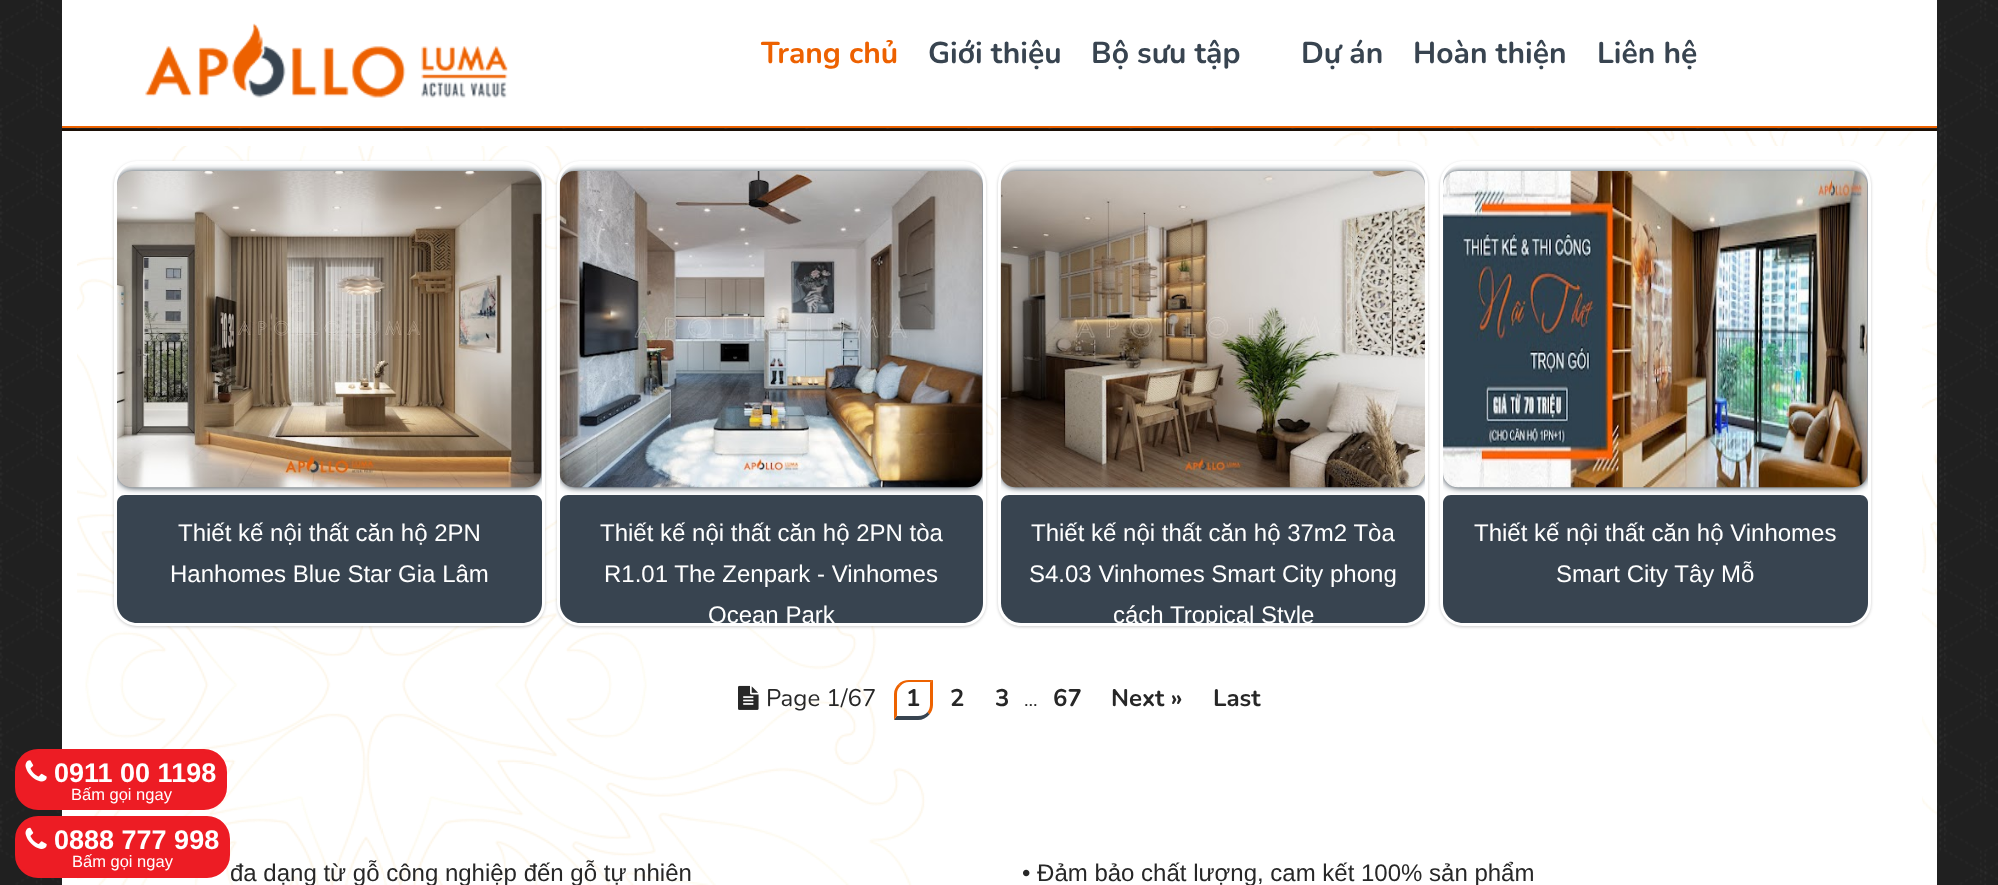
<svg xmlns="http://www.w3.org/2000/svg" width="1998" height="885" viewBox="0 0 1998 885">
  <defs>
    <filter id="blur1" x="-50%" y="-200%" width="200%" height="500%"><feGaussianBlur stdDeviation="1.5"/></filter>
    <clipPath id="clip1"><rect x="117" y="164" width="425" height="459" rx="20"/></clipPath>
    <filter id="blur2" x="-50%" y="-200%" width="200%" height="500%"><feGaussianBlur stdDeviation="3"/></filter>
    <clipPath id="clip2"><rect x="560" y="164" width="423" height="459" rx="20"/></clipPath>
    <clipPath id="clip3"><rect x="560" y="164" width="423" height="459" rx="20"/></clipPath>
    <clipPath id="clip4"><rect x="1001" y="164" width="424" height="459" rx="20"/></clipPath>
    <clipPath id="clip5"><rect x="1001" y="164" width="424" height="459" rx="20"/></clipPath>
    <clipPath id="clip6"><rect x="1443" y="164" width="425" height="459" rx="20"/></clipPath>
  </defs>
  <rect width="100%" height="100%" fill="#ffffff"/>
  <image x="0" y="0" width="1998" height="885" href="img1.png"/>
  <rect x="62" y="131" width="1875" height="754" fill="#ffffff"/>
  <image x="77" y="146" width="921" height="739" href="img5.png"/>
  <rect x="16.5" y="750.5" width="209" height="58" rx="21.5" fill="#ed1c24" stroke="#ed1c24" stroke-width="3"/>
  <image x="25" y="760" width="22" height="22" href="img2.png"/>
  <text x="54" y="782" font-family="Liberation Sans" font-size="27" font-weight="bold" fill="#ffffff">0911 00 1198</text>
  <text x="71" y="800" font-family="Liberation Sans" font-size="16.5" fill="#ffffff">Bấm gọi ngay</text>
  <rect x="62" y="0" width="1875" height="126" fill="#ffffff"/>
  <rect x="62" y="126" width="1875" height="2" fill="#ed6200"/>
  <image x="145" y="23" width="363" height="75" href="img3.png"/>
  <text x="761" y="63" font-family="Nunito" font-size="30" font-weight="bold" fill="#ed6100">Trang chủ</text>
  <text x="928" y="63" font-family="Nunito" font-size="30" font-weight="bold" fill="#384450">Giới thiệu</text>
  <text x="1091" y="63" font-family="Nunito" font-size="30" font-weight="bold" fill="#384450">Bộ sưu tập</text>
  <text x="1301" y="63" font-family="Nunito" font-size="30" font-weight="bold" fill="#384450">Dự án</text>
  <text x="1413" y="63" font-family="Nunito" font-size="30" font-weight="bold" fill="#384450">Hoàn thiện</text>
  <text x="1597" y="63" font-family="Nunito" font-size="30" font-weight="bold" fill="#384450">Liên hệ</text>
  <image x="1333" y="131" width="604" height="684" href="img4.png"/>
  <rect x="62" y="129" width="1875" height="2" fill="#1c1007"/>
  <rect x="1333" y="146" width="589" height="669" fill="#ffffff"/>
  <rect x="114" y="162" width="431" height="465" rx="23" fill="#000000" fill-opacity="0.2" filter="url(#blur1)"/>
  <rect x="115.5" y="162.5" width="428" height="462" rx="21.5" fill="#ffffff" stroke="#ffffff" stroke-width="3"/>
  <g clip-path="url(#clip1)">
    <rect x="117" y="171" width="425" height="317" rx="15" fill="#384450" filter="url(#blur2)"/>
  </g>
  <image x="117" y="171" width="425" height="317" href="img6.png"/>
  <path d="M125 495H534C538.5 495 542 498.5 542 503V603C542 614 533 623 522 623H137C126 623 117 614 117 603V503C117 498.5 120.5 495 125 495Z" fill="#384450"/>
  <text x="178" y="541" font-family="Liberation Sans" font-size="24" fill="#ffffff">Thiết kế nội thất căn hộ 2PN</text>
  <text x="170" y="582" font-family="Liberation Sans" font-size="24" fill="#ffffff">Hanhomes Blue Star Gia Lâm</text>
  <rect x="557" y="162" width="429" height="465" rx="23" fill="#000000" fill-opacity="0.2" filter="url(#blur1)"/>
  <rect x="558.5" y="162.5" width="426" height="462" rx="21.5" fill="#ffffff" stroke="#ffffff" stroke-width="3"/>
  <g clip-path="url(#clip2)">
    <rect x="560" y="171" width="423" height="317" rx="15" fill="#384450" filter="url(#blur2)"/>
  </g>
  <image x="559" y="171" width="424" height="317" href="img7.png"/>
  <path d="M568 495H975C979.5 495 983 498.5 983 503V603C983 614 974 623 963 623H580C569 623 560 614 560 603V503C560 498.5 563.5 495 568 495Z" fill="#384450"/>
  <text x="600" y="541" font-family="Liberation Sans" font-size="24" fill="#ffffff">Thiết kế nội thất căn hộ 2PN tòa</text>
  <text x="604" y="582" font-family="Liberation Sans" font-size="24" fill="#ffffff">R1.01 The Zenpark - Vinhomes</text>
  <g clip-path="url(#clip3)">
    <text x="708" y="623" font-family="Liberation Sans" font-size="24" fill="#ffffff">Ocean Park</text>
  </g>
  <rect x="998" y="162" width="430" height="465" rx="23" fill="#000000" fill-opacity="0.2" filter="url(#blur1)"/>
  <rect x="999.5" y="162.5" width="427" height="462" rx="21.5" fill="#ffffff" stroke="#ffffff" stroke-width="3"/>
  <g clip-path="url(#clip4)">
    <rect x="1001" y="171" width="424" height="317" rx="15" fill="#384450" filter="url(#blur2)"/>
  </g>
  <image x="1000" y="171" width="425" height="317" href="img8.png"/>
  <path d="M1009 495H1417C1421.5 495 1425 498.5 1425 503V603C1425 614 1416 623 1405 623H1021C1010 623 1001 614 1001 603V503C1001 498.5 1004.5 495 1009 495Z" fill="#384450"/>
  <text x="1031" y="541" font-family="Liberation Sans" font-size="24" fill="#ffffff">Thiết kế nội thất căn hộ 37m2 Tòa</text>
  <text x="1029" y="582" font-family="Liberation Sans" font-size="24" fill="#ffffff">S4.03 Vinhomes Smart City phong</text>
  <g clip-path="url(#clip5)">
    <text x="1113" y="623" font-family="Liberation Sans" font-size="24" fill="#ffffff">cách Tropical Style</text>
  </g>
  <rect x="1440" y="162" width="431" height="465" rx="23" fill="#000000" fill-opacity="0.2" filter="url(#blur1)"/>
  <rect x="1441.5" y="162.5" width="428" height="462" rx="21.5" fill="#ffffff" stroke="#ffffff" stroke-width="3"/>
  <g clip-path="url(#clip6)">
    <rect x="1443" y="171" width="425" height="317" rx="15" fill="#384450" filter="url(#blur2)"/>
  </g>
  <image x="1443" y="171" width="425" height="317" href="img9.png"/>
  <path d="M1451 495H1860C1864.5 495 1868 498.5 1868 503V603C1868 614 1859 623 1848 623H1463C1452 623 1443 614 1443 603V503C1443 498.5 1446.5 495 1451 495Z" fill="#384450"/>
  <text x="1474" y="541" font-family="Liberation Sans" font-size="24" fill="#ffffff">Thiết kế nội thất căn hộ Vinhomes</text>
  <text x="1556" y="582" font-family="Liberation Sans" font-size="24" fill="#ffffff">Smart City Tây Mỗ</text>
  <image x="738" y="685" width="21" height="25" href="img10.png"/>
  <text x="766" y="706" font-family="Nunito" font-size="24" fill="#272727">Page 1/67</text>
  <text x="906" y="706" font-family="Nunito" font-size="24" font-weight="bold" fill="#272727">1</text>
  <path d="M909 680C905 680 901 681.5 898.5 684L900.5 686C902.5 683.5 905.5 682 909 682H930V682.5L932.5 680Z" fill="#ed6200"/>
  <path d="M933 705V680H932.5L930 682.5V705C930 707.5 929 710 927.5 712L929.5 714.5C931.5 712 933 708.5 933 705Z" fill="#ed6200"/>
  <path d="M918 720C922.5 720 926.5 718 929.5 714.5L927.5 712C925.5 714.5 922 716 918 716H897V715.5L894 720Z" fill="#384450"/>
  <path d="M894 720L897 715.5V694C897 691 898 688 900.5 686L898.5 684C896 686.5 894 690 894 694Z" fill="#ed6200"/>
  <text x="950" y="706" font-family="Nunito" font-size="24" font-weight="bold" fill="#272727">2</text>
  <text x="995" y="706" font-family="Nunito" font-size="24" font-weight="bold" fill="#272727">3</text>
  <text x="1024" y="706" font-family="Nunito" font-size="20" fill="#272727">...</text>
  <text x="1053" y="706" font-family="Nunito" font-size="24" font-weight="bold" fill="#272727">67</text>
  <text x="1111" y="706" font-family="Nunito" font-size="24" font-weight="bold" fill="#272727">Next »</text>
  <text x="1213" y="706" font-family="Nunito" font-size="24" font-weight="bold" fill="#272727">Last</text>
  <text x="230" y="881" font-family="Liberation Sans" font-size="24" fill="#272727">đa dạng từ gỗ công nghiệp đến gỗ tự nhiên</text>
  <text x="1022" y="881" font-family="Liberation Sans" font-size="24" fill="#272727">• Đảm bảo chất lượng, cam kết 100% sản phẩm</text>
  <rect x="16.5" y="817.5" width="212" height="59" rx="21.5" fill="#ed1c24" stroke="#ed1c24" stroke-width="3"/>
  <image x="25" y="827" width="22" height="22" href="img11.png"/>
  <text x="54" y="849" font-family="Liberation Sans" font-size="27" font-weight="bold" fill="#ffffff">0888 777 998</text>
  <text x="72" y="867" font-family="Liberation Sans" font-size="16.5" fill="#ffffff">Bấm gọi ngay</text>
</svg>
